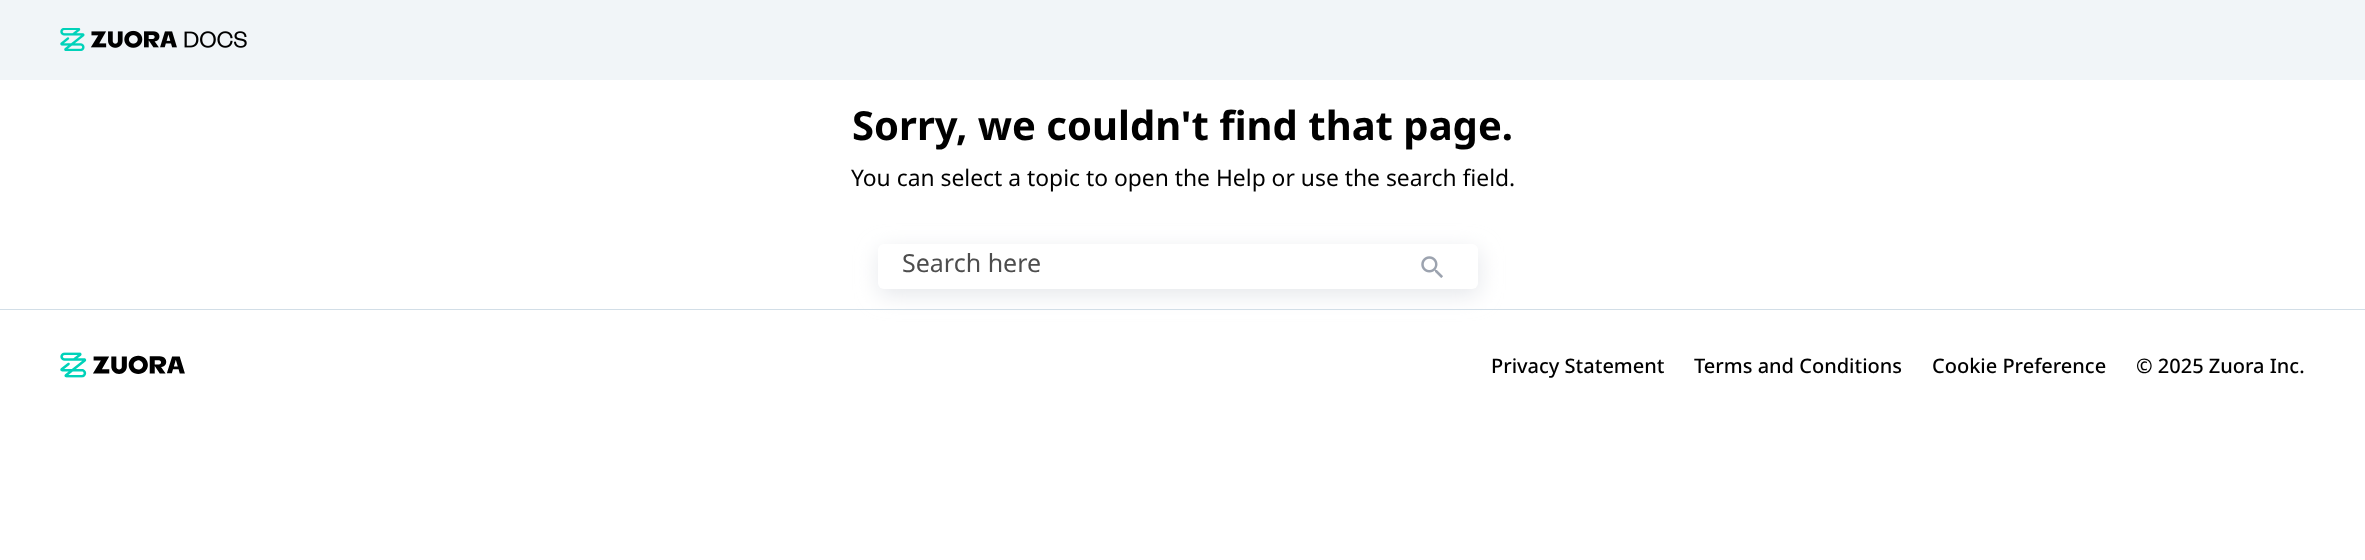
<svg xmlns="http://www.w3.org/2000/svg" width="2365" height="560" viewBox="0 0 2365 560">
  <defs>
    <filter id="blur1" x="-50%" y="-200%" width="200%" height="500%"><feGaussianBlur stdDeviation="11"/></filter>
  </defs>
  <rect width="100%" height="100%" fill="#ffffff"/>
  <rect x="0" y="0" width="2365" height="80" fill="#f1f5f8"/>
  <image x="60" y="28" width="187" height="23" href="img1.png"/>
  <text x="852" y="140" font-family="Noto Sans" font-size="40" font-weight="bold" fill="#000000">Sorry, we couldn't find that page.</text>
  <text x="851" y="186" font-family="Noto Sans" font-size="22.85" fill="#000000">You can select a topic to open the Help or use the search field.</text>
  <rect x="879" y="250" width="600" height="45" rx="6" fill="#e5e7eb" filter="url(#blur1)"/>
  <rect x="878" y="244" width="600" height="45" rx="6" fill="#ffffff"/>
  <text x="902" y="272" font-family="Noto Sans" font-size="25" fill="#4d4d4d">Search here</text>
  <image x="1421" y="256" width="22" height="22" href="img2.png"/>
  <rect x="0" y="309" width="2365" height="1" fill="#d2dee7"/>
  <image x="60" y="352" width="125" height="26" href="img3.png"/>
  <text x="1491" y="373" font-family="Noto Sans" font-size="20" font-weight="500" fill="#000000">Privacy Statement</text>
  <text x="1694" y="373" font-family="Noto Sans" font-size="20" font-weight="500" fill="#000000">Terms and Conditions</text>
  <text x="1932" y="373" font-family="Noto Sans" font-size="20" font-weight="500" fill="#000000">Cookie Preference</text>
  <text x="2136" y="373" font-family="Noto Sans" font-size="20" font-weight="500" fill="#000000">© 2025 Zuora Inc.</text>
</svg>
